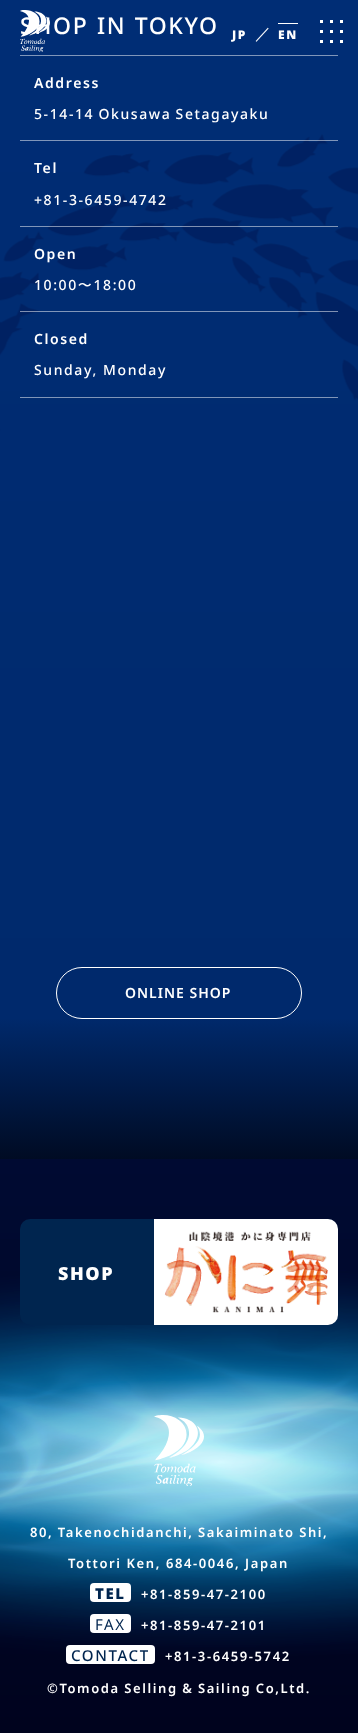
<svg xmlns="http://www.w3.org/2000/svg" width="358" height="1733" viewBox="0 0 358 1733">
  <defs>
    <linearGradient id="g1" gradientUnits="userSpaceOnUse" x1="179" y1="1019" x2="179" y2="1159"><stop offset="0" stop-color="#00296b"/><stop offset="1" stop-color="#000b23"/></linearGradient>
  </defs>
  <rect width="100%" height="100%" fill="#ffffff"/>
  <image x="0" y="0" width="358" height="1019" href="img2.png"/>
  <text x="20" y="34" word-spacing="1" font-family="Noto Sans" font-size="23" font-weight="500" letter-spacing="1.6" fill="#ffffff">SHOP IN TOKYO</text>
  <image x="20" y="10" width="30" height="42" href="img1.png"/>
  <rect x="320" y="20" width="3" height="3" fill="#ffffff"/>
  <rect x="330" y="20" width="3" height="3" fill="#ffffff"/>
  <rect x="340" y="20" width="3" height="3" fill="#ffffff"/>
  <rect x="320" y="30" width="3" height="3" fill="#ffffff"/>
  <rect x="330" y="30" width="3" height="3" fill="#ffffff"/>
  <rect x="340" y="30" width="3" height="3" fill="#ffffff"/>
  <rect x="320" y="40" width="3" height="3" fill="#ffffff"/>
  <rect x="330" y="40" width="3" height="3" fill="#ffffff"/>
  <rect x="340" y="40" width="3" height="3" fill="#ffffff"/>
  <rect x="20" y="55" width="318" height="1" fill="#8096ba"/>
  <text x="34" y="88" font-family="Noto Sans" font-size="14" font-weight="600" letter-spacing="1.6" fill="#ffffff">Address</text>
  <text x="34" y="119" word-spacing="-1" font-family="Noto Sans" font-size="14" font-weight="500" letter-spacing="1.6" fill="#ffffff">5-14-14 Okusawa Setagayaku</text>
  <rect x="20" y="140" width="318" height="1" fill="#ffffff" fill-opacity="0.5"/>
  <text x="34" y="173" font-family="Noto Sans" font-size="14" font-weight="600" letter-spacing="1.6" fill="#ffffff">Tel</text>
  <text x="34" y="205" font-family="Noto Sans" font-size="14" font-weight="500" letter-spacing="1.6" fill="#ffffff">+81-3-6459-4742</text>
  <rect x="20" y="226" width="318" height="1" fill="#ffffff" fill-opacity="0.5"/>
  <text x="34" y="259" font-family="Noto Sans" font-size="14" font-weight="600" letter-spacing="1.6" fill="#ffffff">Open</text>
  <text x="34" y="290" font-family="Noto Sans" font-size="14" font-weight="500" letter-spacing="1.6" fill="#ffffff">10:00〜18:00</text>
  <rect x="20" y="311" width="318" height="1" fill="#ffffff" fill-opacity="0.5"/>
  <rect x="20" y="397" width="318" height="1" fill="#8096b8"/>
  <text x="34" y="344" font-family="Noto Sans" font-size="14" font-weight="600" letter-spacing="1.6" fill="#ffffff">Closed</text>
  <text x="34" y="375" font-family="Noto Sans" font-size="14" font-weight="500" letter-spacing="1.6" fill="#ffffff">Sunday, Monday</text>
  <rect x="56.5" y="967.5" width="245" height="51" rx="25.5" fill="none" stroke="#ffffff"/>
  <text x="125" y="998" font-family="Noto Sans" font-size="14" font-weight="600" letter-spacing="1" fill="#ffffff">ONLINE SHOP</text>
  <text x="232" y="39" font-family="Noto Sans" font-size="12" font-weight="900" letter-spacing="1.6" fill="#ffffff">JP</text>
  <text x="255" y="39" font-family="Noto Sans" font-size="16" font-weight="500" letter-spacing="1.6" fill="#ffffff">／</text>
  <rect x="278" y="23" width="20" height="1" fill="#ffffff"/>
  <text x="278" y="39" font-family="Noto Sans" font-size="12" font-weight="900" letter-spacing="1.6" fill="#ffffff">EN</text>
  <image x="0" y="1159" width="358" height="574" href="img3.png"/>
  <rect x="0" y="1019" width="358" height="140" fill="url(#g1)"/>
  <rect x="20" y="1219" width="318" height="106" rx="10" fill="#00254f"/>
  <text x="58" y="1280" font-family="Noto Sans" font-size="18" font-weight="900" letter-spacing="1.6" fill="#ffffff">SHOP</text>
  <image x="154" y="1219" width="184" height="106" href="img4.png"/>
  <image x="154" y="1415" width="50" height="71" href="img5.png"/>
  <text x="30" y="1537" word-spacing="-0.5" font-family="Noto Sans" font-size="13" font-weight="600" letter-spacing="1.6" fill="#ffffff">80, Takenochidanchi, Sakaiminato Shi,</text>
  <text x="68" y="1568" font-family="Noto Sans" font-size="13" font-weight="600" letter-spacing="1.6" fill="#ffffff">Tottori Ken, 684-0046, Japan</text>
  <rect x="90" y="1583" width="41" height="19" rx="4" fill="#ffffff"/>
  <text x="95" y="1599" font-family="Noto Sans" font-size="15" font-weight="900" letter-spacing="1.6" fill="#00254f">TEL</text>
  <text x="141" y="1599" font-family="Noto Sans" font-size="13" font-weight="600" letter-spacing="1.6" fill="#ffffff">+81-859-47-2100</text>
  <rect x="90" y="1614" width="41" height="19" rx="4" fill="#ffffff"/>
  <text x="95" y="1630" font-family="Noto Sans" font-size="15" letter-spacing="1.6" fill="#00254f">FAX</text>
  <text x="141" y="1630" font-family="Noto Sans" font-size="13" font-weight="600" letter-spacing="1.6" fill="#ffffff">+81-859-47-2101</text>
  <rect x="66" y="1645" width="89" height="19" rx="4" fill="#ffffff"/>
  <text x="71" y="1661" font-family="Noto Sans" font-size="15" font-weight="500" letter-spacing="1.6" fill="#00254f">CONTACT</text>
  <text x="165" y="1661" font-family="Noto Sans" font-size="13" font-weight="600" letter-spacing="1.6" fill="#ffffff">+81-3-6459-5742</text>
  <text x="47" y="1693" word-spacing="-0.5" font-family="Noto Sans" font-size="13" font-weight="600" letter-spacing="1.6" fill="#ffffff">©Tomoda Selling &amp; Sailing Co,Ltd.</text>
</svg>
